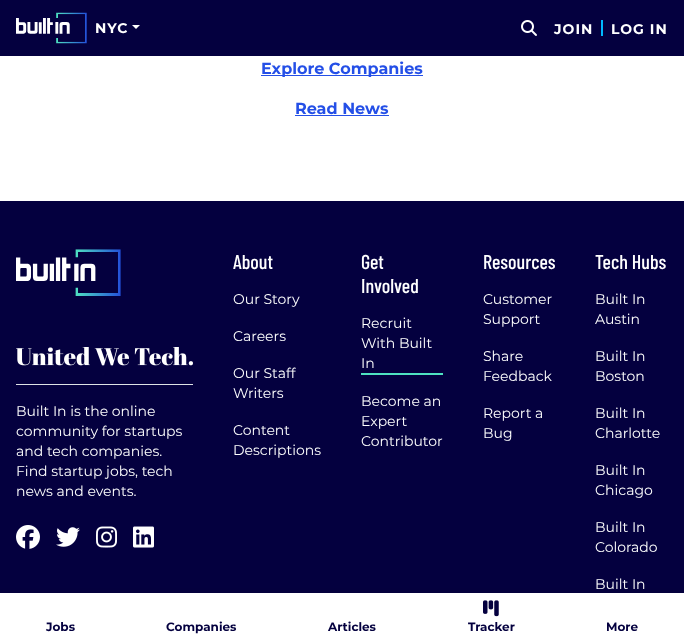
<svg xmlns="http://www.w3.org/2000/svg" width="684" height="641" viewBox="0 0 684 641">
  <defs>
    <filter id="blur1" x="-50%" y="-200%" width="200%" height="500%"><feGaussianBlur stdDeviation="5"/></filter>
  </defs>
  <rect width="100%" height="100%" fill="#ffffff"/>
  <rect x="0" y="0" width="684" height="56" fill="#04003f"/>
  <image x="16" y="12" width="71" height="32" href="img1.png"/>
  <text x="95" y="33" font-family="Montserrat" font-size="14" font-weight="100" letter-spacing="1" fill="#ffffff">NYC</text>
  <path d="M132 25H140L136 29Z" fill="#ffffff"/>
  <image x="521" y="20" width="16" height="16" href="img2.png"/>
  <text x="554" y="34" font-family="Montserrat" font-size="14" font-weight="100" letter-spacing="1" fill="#ffffff">JOIN</text>
  <rect x="601" y="20" width="2" height="16" fill="#00b9fe"/>
  <text x="611" y="34" font-family="Montserrat" font-size="14" font-weight="100" letter-spacing="1" fill="#ffffff">LOG IN</text>
  <rect x="261" y="75" width="162" height="1" fill="#244fe7"/>
  <text x="261" y="74" font-family="Montserrat" font-size="16" font-weight="100" fill="#244fe7">Explore Companies</text>
  <text x="295" y="114" font-family="Montserrat" font-size="16" font-weight="100" fill="#244fe7">Read News</text>
  <rect x="295" y="115" width="94" height="1" fill="#244fe7"/>
  <rect x="0" y="201" width="684" height="392" fill="#04003f"/>
  <image x="16" y="249" width="105" height="47" href="img3.png"/>
  <rect x="16" y="384" width="177" height="1" fill="#dee2e6"/>
  <image x="16" y="347" width="177" height="19" href="img4.png"/>
  <text x="16" y="416" font-family="'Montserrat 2'" font-size="14" font-weight="100" fill="#ffffff">Built In is the online</text>
  <text x="16" y="436" font-family="'Montserrat 2'" font-size="14" font-weight="100" fill="#ffffff">community for startups</text>
  <text x="16" y="456" font-family="'Montserrat 2'" font-size="14" font-weight="100" fill="#ffffff">and tech companies.</text>
  <text x="16" y="476" font-family="'Montserrat 2'" font-size="14" font-weight="100" fill="#ffffff">Find startup jobs, tech</text>
  <text x="16" y="496" font-family="'Montserrat 2'" font-size="14" font-weight="100" fill="#ffffff">news and events.</text>
  <image x="16" y="525" width="24" height="24" href="img5.png"/>
  <image x="56" y="527" width="24" height="20" href="img6.png"/>
  <image x="96" y="526" width="21" height="22" href="img7.png"/>
  <image x="133" y="526" width="21" height="22" href="img8.png"/>
  <text x="233" y="269" font-family="Barlow Condensed" font-size="20" font-weight="500" fill="#ffffff">About</text>
  <text x="233" y="304" font-family="'Montserrat 2'" font-size="14" font-weight="100" fill="#ffffff">Our Story</text>
  <text x="233" y="341" font-family="'Montserrat 2'" font-size="14" font-weight="100" fill="#ffffff">Careers</text>
  <text x="233" y="378" font-family="'Montserrat 2'" font-size="14" font-weight="100" fill="#ffffff">Our Staff</text>
  <text x="233" y="398" font-family="'Montserrat 2'" font-size="14" font-weight="100" fill="#ffffff">Writers</text>
  <text x="233" y="435" font-family="'Montserrat 2'" font-size="14" font-weight="100" fill="#ffffff">Content</text>
  <text x="233" y="455" font-family="'Montserrat 2'" font-size="14" font-weight="100" fill="#ffffff">Descriptions</text>
  <text x="361" y="269" font-family="Barlow Condensed" font-size="20" font-weight="500" fill="#ffffff">Get</text>
  <text x="361" y="293" font-family="Barlow Condensed" font-size="20" font-weight="500" fill="#ffffff">Involved</text>
  <rect x="361" y="373" width="82" height="2" fill="#4fe2c1"/>
  <text x="361" y="328" font-family="'Montserrat 2'" font-size="14" font-weight="100" fill="#ffffff">Recruit</text>
  <text x="361" y="348" font-family="'Montserrat 2'" font-size="14" font-weight="100" fill="#ffffff">With Built</text>
  <text x="361" y="368" font-family="'Montserrat 2'" font-size="14" font-weight="100" fill="#ffffff">In</text>
  <text x="361" y="406" font-family="'Montserrat 2'" font-size="14" font-weight="100" fill="#ffffff">Become an</text>
  <text x="361" y="426" font-family="'Montserrat 2'" font-size="14" font-weight="100" fill="#ffffff">Expert</text>
  <text x="361" y="446" font-family="'Montserrat 2'" font-size="14" font-weight="100" fill="#ffffff">Contributor</text>
  <text x="483" y="269" font-family="Barlow Condensed" font-size="20" font-weight="500" fill="#ffffff">Resources</text>
  <text x="483" y="304" font-family="'Montserrat 2'" font-size="14" font-weight="100" fill="#ffffff">Customer</text>
  <text x="483" y="324" font-family="'Montserrat 2'" font-size="14" font-weight="100" fill="#ffffff">Support</text>
  <text x="483" y="361" font-family="'Montserrat 2'" font-size="14" font-weight="100" fill="#ffffff">Share</text>
  <text x="483" y="381" font-family="'Montserrat 2'" font-size="14" font-weight="100" fill="#ffffff">Feedback</text>
  <text x="483" y="418" font-family="'Montserrat 2'" font-size="14" font-weight="100" fill="#ffffff">Report a</text>
  <text x="483" y="438" font-family="'Montserrat 2'" font-size="14" font-weight="100" fill="#ffffff">Bug</text>
  <text x="595" y="269" font-family="Barlow Condensed" font-size="20" font-weight="500" fill="#ffffff">Tech Hubs</text>
  <text x="595" y="304" font-family="'Montserrat 2'" font-size="14" font-weight="100" fill="#ffffff">Built In</text>
  <text x="595" y="324" font-family="'Montserrat 2'" font-size="14" font-weight="100" fill="#ffffff">Austin</text>
  <text x="595" y="361" font-family="'Montserrat 2'" font-size="14" font-weight="100" fill="#ffffff">Built In</text>
  <text x="595" y="381" font-family="'Montserrat 2'" font-size="14" font-weight="100" fill="#ffffff">Boston</text>
  <text x="595" y="418" font-family="'Montserrat 2'" font-size="14" font-weight="100" fill="#ffffff">Built In</text>
  <text x="595" y="438" font-family="'Montserrat 2'" font-size="14" font-weight="100" fill="#ffffff">Charlotte</text>
  <text x="595" y="475" font-family="'Montserrat 2'" font-size="14" font-weight="100" fill="#ffffff">Built In</text>
  <text x="595" y="495" font-family="'Montserrat 2'" font-size="14" font-weight="100" fill="#ffffff">Chicago</text>
  <text x="595" y="532" font-family="'Montserrat 2'" font-size="14" font-weight="100" fill="#ffffff">Built In</text>
  <text x="595" y="552" font-family="'Montserrat 2'" font-size="14" font-weight="100" fill="#ffffff">Colorado</text>
  <text x="595" y="589" font-family="'Montserrat 2'" font-size="14" font-weight="100" fill="#ffffff">Built In</text>
  <rect x="0" y="594" width="684" height="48" fill="#000000" fill-opacity="0.12" filter="url(#blur1)"/>
  <rect x="0" y="593" width="684" height="48" fill="#ffffff"/>
  <text x="46" y="631" font-family="Montserrat" font-size="12" font-weight="100" fill="#04003f">Jobs</text>
  <text x="166" y="631" font-family="Montserrat" font-size="12" font-weight="100" fill="#04003f">Companies</text>
  <text x="328" y="631" font-family="Montserrat" font-size="12" font-weight="100" fill="#04003f">Articles</text>
  <image x="483" y="600" width="16" height="17" href="img9.png"/>
  <text x="468" y="631" font-family="Montserrat" font-size="12" font-weight="100" fill="#04003f">Tracker</text>
  <text x="606" y="631" font-family="Montserrat" font-size="12" font-weight="100" fill="#04003f">More</text>
</svg>
